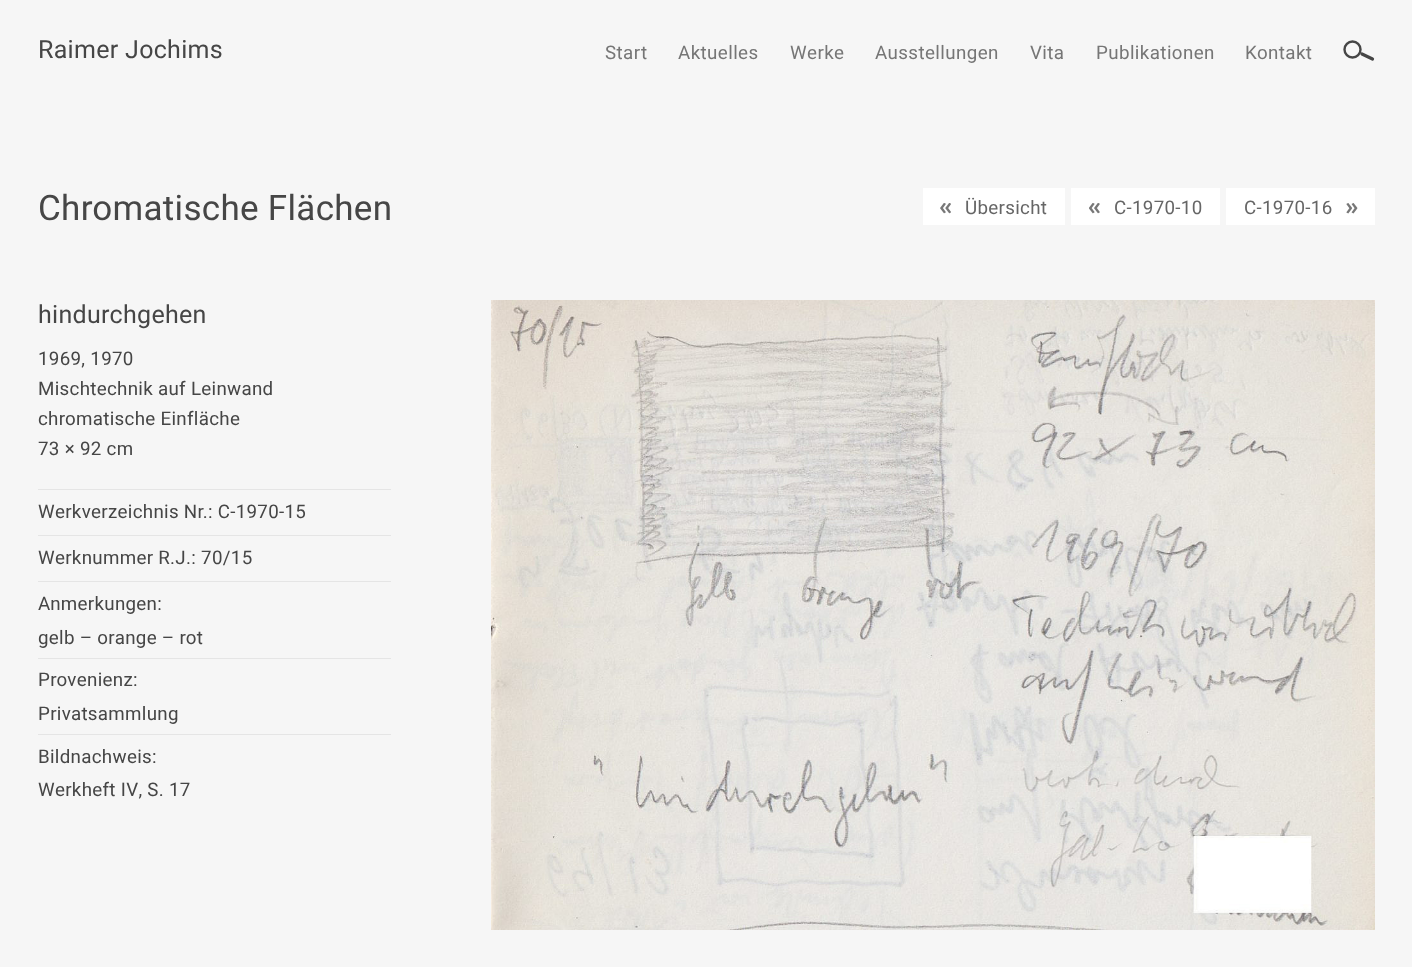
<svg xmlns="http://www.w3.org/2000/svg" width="1412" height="967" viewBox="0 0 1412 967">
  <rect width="100%" height="100%" fill="#f6f6f6"/>
  <text x="38" y="58" font-family="Heebo" font-size="25" letter-spacing="0.3" fill="#464646">Raimer Jochims</text>
  <text x="605" y="59" font-family="Heebo" font-size="18.75" letter-spacing="0.4" fill="#767676">Start</text>
  <text x="678" y="59" font-family="Heebo" font-size="18.75" letter-spacing="0.4" fill="#767676">Aktuelles</text>
  <text x="790" y="59" font-family="Heebo" font-size="18.75" letter-spacing="0.4" fill="#767676">Werke</text>
  <text x="875" y="59" font-family="Heebo" font-size="18.75" letter-spacing="0.4" fill="#767676">Ausstellungen</text>
  <text x="1030" y="59" font-family="Heebo" font-size="18.75" letter-spacing="0.4" fill="#767676">Vita</text>
  <text x="1096" y="59" font-family="Heebo" font-size="18.75" letter-spacing="0.4" fill="#767676">Publikationen</text>
  <text x="1245" y="59" font-family="Heebo" font-size="18.75" letter-spacing="0.4" fill="#767676">Kontakt</text>
  <circle cx="1352.5" cy="49.5" r="8" fill="none" stroke="#464646" stroke-width="2.4"/>
  <path d="M1362 54L1372.5 59" fill="none" stroke="#464646" stroke-width="3.2" stroke-linecap="round"/>
  <text x="38" y="220" font-family="Heebo" font-size="35" letter-spacing="0.3" fill="#464646">Chromatische Flächen</text>
  <rect x="923" y="188" width="142" height="37" fill="#ffffff"/>
  <image x="940" y="203" width="11" height="11" href="img1.png"/>
  <text x="965" y="214" font-family="Heebo" font-size="18.75" letter-spacing="0.3" fill="#666666">Übersicht</text>
  <rect x="1071" y="188" width="149" height="37" fill="#ffffff"/>
  <image x="1089" y="203" width="11" height="11" href="img2.png"/>
  <text x="1114" y="214" font-family="Heebo" font-size="18.75" letter-spacing="0.3" fill="#666666">C-1970-10</text>
  <rect x="1226" y="188" width="149" height="37" fill="#ffffff"/>
  <text x="1244" y="214" font-family="Heebo" font-size="18.75" letter-spacing="0.3" fill="#666666">C-1970-16</text>
  <image x="1346" y="203" width="12" height="11" href="img3.png"/>
  <text x="38" y="323" font-family="Heebo" font-size="25" letter-spacing="0.3" fill="#464646">hindurchgehen</text>
  <text x="38" y="365" font-family="Heebo" font-size="18.75" letter-spacing="0.3" fill="#464646">1969, 1970</text>
  <text x="38" y="395" font-family="Heebo" font-size="18.75" letter-spacing="0.3" fill="#464646">Mischtechnik auf Leinwand</text>
  <text x="38" y="425" font-family="Heebo" font-size="18.75" letter-spacing="0.3" fill="#464646">chromatische Einfläche</text>
  <text x="38" y="455" font-family="Heebo" font-size="18.75" letter-spacing="0.3" fill="#464646">73 × 92 cm</text>
  <rect x="38" y="489" width="353" height="1" fill="#e5e5e5"/>
  <rect x="38" y="535" width="353" height="1" fill="#e5e5e5"/>
  <text x="38" y="518" font-family="Heebo" font-size="18.75" letter-spacing="0.3" fill="#464646">Werkverzeichnis Nr.: C-1970-15</text>
  <rect x="38" y="581" width="353" height="1" fill="#e5e5e5"/>
  <text x="38" y="564" font-family="Heebo" font-size="18.75" letter-spacing="0.3" fill="#464646">Werknummer R.J.: 70/15</text>
  <rect x="38" y="658" width="353" height="1" fill="#e5e5e5"/>
  <text x="38" y="610" font-family="Heebo" font-size="18.75" letter-spacing="0.3" fill="#464646">Anmerkungen:</text>
  <text x="38" y="644" font-family="Heebo" font-size="18.75" letter-spacing="0.3" fill="#464646">gelb – orange – rot</text>
  <rect x="38" y="734" width="353" height="1" fill="#e5e5e5"/>
  <text x="38" y="686" font-family="Heebo" font-size="18.75" letter-spacing="0.3" fill="#464646">Provenienz:</text>
  <text x="38" y="720" font-family="Heebo" font-size="18.75" letter-spacing="0.3" fill="#464646">Privatsammlung</text>
  <text x="38" y="763" font-family="Heebo" font-size="18.75" letter-spacing="0.3" fill="#464646">Bildnachweis:</text>
  <text x="38" y="796" font-family="Heebo" font-size="18.75" letter-spacing="0.3" fill="#464646">Werkheft IV, S. 17</text>
  <image x="491" y="300" width="884" height="630" href="img4.png"/>
</svg>
